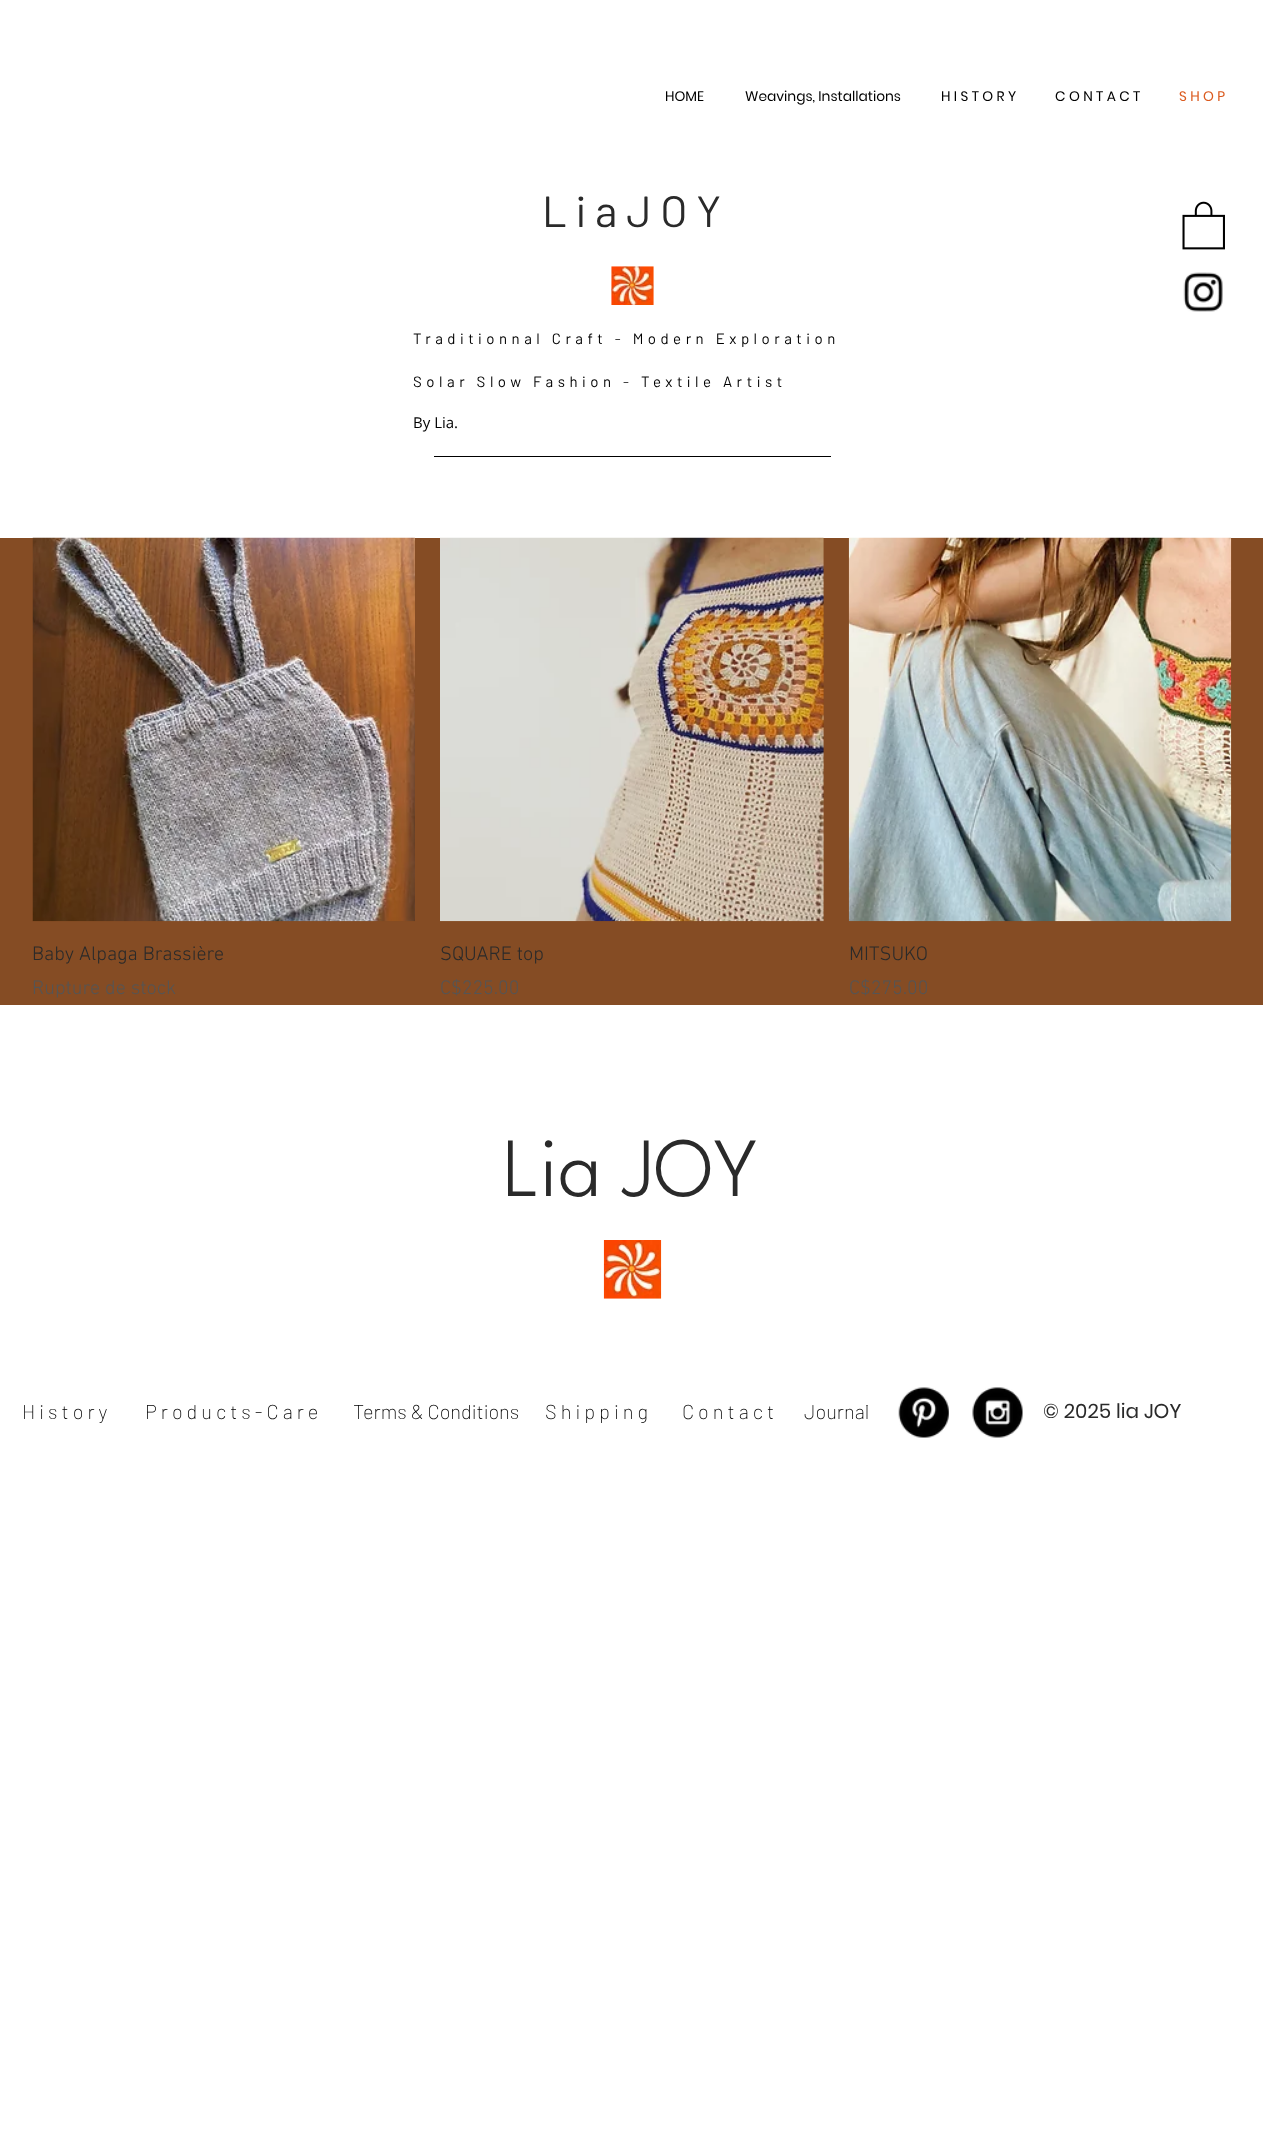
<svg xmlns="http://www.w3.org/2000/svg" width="1263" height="2152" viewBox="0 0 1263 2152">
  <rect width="100%" height="100%" fill="#ffffff"/>
  <text x="665" y="101" font-family="Poppins" font-size="13.75" fill="#000000">HOME</text>
  <text x="745" y="101" font-family="Poppins" font-size="13.75" fill="#000000">Weavings, Installations</text>
  <text x="941" y="101" font-family="Poppins" font-size="13.75" fill="#000000">H I S T O R Y</text>
  <text x="1055" y="101" font-family="Poppins" font-size="13.75" fill="#000000">C O N T A C T</text>
  <text x="1179" y="101" font-family="Poppins" font-size="13.75" fill="#db5a1e">S H O P</text>
  <text x="542" y="227" font-family="Barlow" font-size="43.75" fill="#2a2a2a">L i a J O Y</text>
  <image x="1182" y="201" width="43" height="49" href="img1.png"/>
  <image x="611" y="266" width="43" height="39" href="img2.png"/>
  <image x="1183" y="272" width="40" height="40" href="img3.png"/>
  <text x="413" y="344" font-family="Barlow" font-size="15" letter-spacing="4.5" fill="#000000">Traditionnal Craft - Modern Exploration</text>
  <text x="413" y="387" font-family="Barlow" font-size="15" letter-spacing="4.5" fill="#000000">Solar Slow Fashion - Textile Artist</text>
  <text x="413" y="428" font-family="Open Sans" font-size="15" fill="#000000">By Lia.</text>
  <rect x="434" y="456" width="397" height="1" fill="#000000"/>
  <rect x="0" y="538" width="1263" height="467" fill="#854c24"/>
  <image x="32" y="537" width="383" height="385" href="img4.png"/>
  <text x="32" y="960" font-family="'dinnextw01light'" font-size="20" font-weight="300" fill="#2a2a2a">Baby Alpaga Brassière</text>
  <text x="32" y="994" font-family="'dinnextw01light'" font-size="20" font-weight="300" fill="#555555">Rupture de stock</text>
  <image x="440" y="537" width="384" height="385" href="img5.png"/>
  <text x="440" y="960" font-family="'dinnextw01light'" font-size="20" font-weight="300" fill="#2a2a2a">SQUARE top</text>
  <text x="440" y="994" font-family="'dinnextw01light'" font-size="20" font-weight="300" fill="#555555">C$225.00</text>
  <image x="848" y="537" width="384" height="385" href="img6.png"/>
  <text x="849" y="960" font-family="'dinnextw01light'" font-size="20" font-weight="300" fill="#2a2a2a">MITSUKO</text>
  <text x="849" y="994" font-family="'dinnextw01light'" font-size="20" font-weight="300" fill="#555555">C$275.00</text>
  <text x="503" y="1196" font-family="League Spartan" font-size="84" font-weight="100" fill="#2a2a2a">Lia JOY</text>
  <image x="603" y="1240" width="59" height="59" href="img7.png"/>
  <text x="22" y="1419" font-family="Barlow" font-size="20" font-weight="200" fill="#000000">H i s t o r y</text>
  <text x="145" y="1419" font-family="Barlow" font-size="20" font-weight="200" fill="#000000">P r o d u c t s - C a r e</text>
  <text x="353" y="1419" font-family="Barlow" font-size="20" font-weight="200" fill="#000000">Terms &amp; Conditions</text>
  <text x="545" y="1419" font-family="Barlow" font-size="20" font-weight="200" fill="#000000">S h i p p i n g</text>
  <text x="682" y="1419" font-family="Barlow" font-size="20" font-weight="200" fill="#000000">C o n t a c t</text>
  <text x="804" y="1419" font-family="Barlow" font-size="20" font-weight="200" fill="#000000">Journal</text>
  <image x="898" y="1387" width="51" height="51" href="img8.png"/>
  <image x="972" y="1387" width="51" height="51" href="img9.png"/>
  <text x="1043" y="1418" font-family="Poppins" font-size="20" fill="#2a2a2a">© 2025 lia JOY</text>
</svg>
